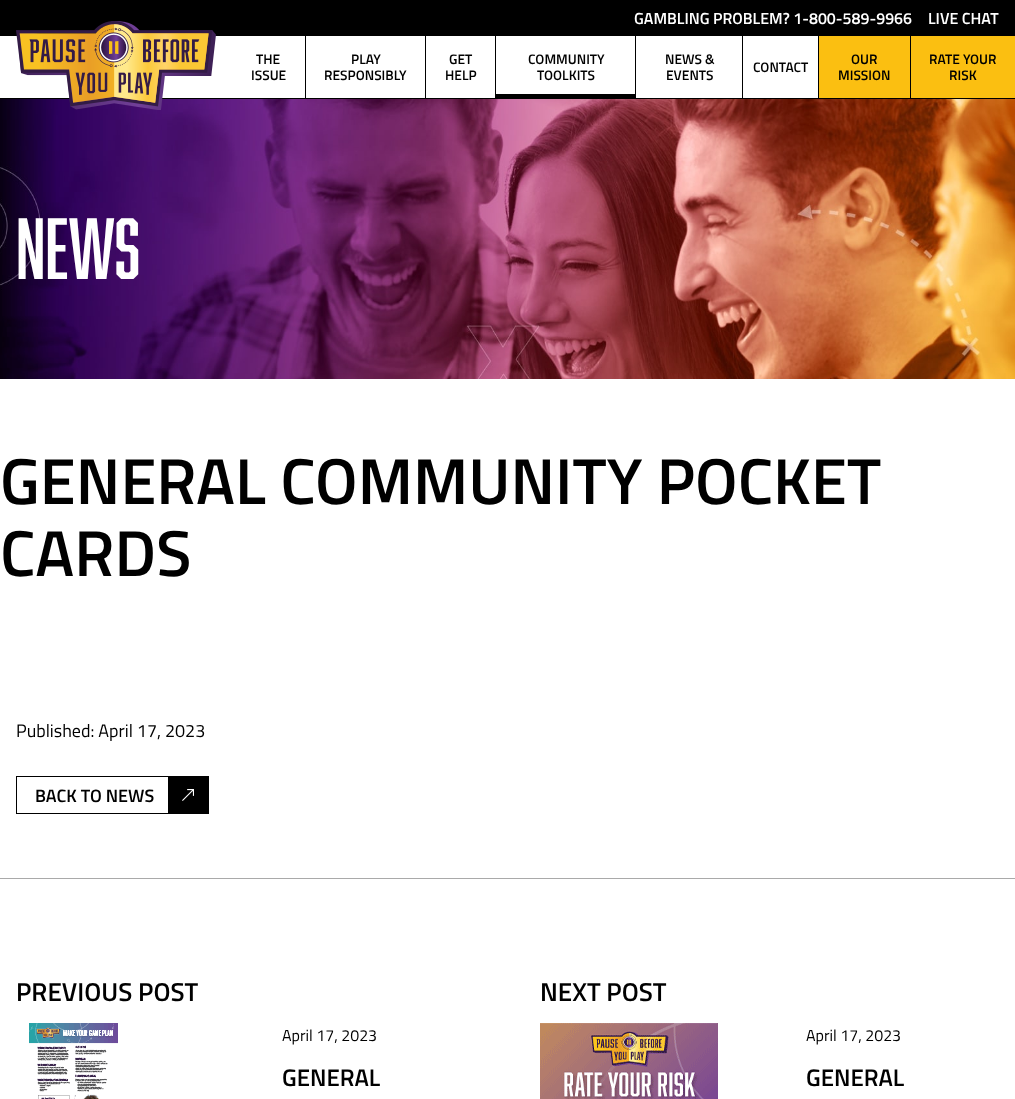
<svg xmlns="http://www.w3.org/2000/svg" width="1015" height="1099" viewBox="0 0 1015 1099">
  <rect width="100%" height="100%" fill="#ffffff"/>
  <rect x="0" y="0" width="1015" height="36" fill="#000000"/>
  <text x="634" y="24" font-family="Titillium Web" font-size="16" font-weight="600" fill="#ffffff">GAMBLING PROBLEM? 1-800-589-9966</text>
  <text x="928" y="24" font-family="Titillium Web" font-size="16" font-weight="600" fill="#ffffff">LIVE CHAT</text>
  <rect x="0" y="98" width="1015" height="1" fill="#000000"/>
  <image x="0" y="99" width="1015" height="280" href="img2.png"/>
  <image x="16" y="21" width="200" height="89" href="img1.png"/>
  <text x="256" y="64" font-family="Titillium Web" font-size="13.75" font-weight="600" fill="#000000">THE</text>
  <text x="251" y="80" font-family="Titillium Web" font-size="13.75" font-weight="600" fill="#000000">ISSUE</text>
  <rect x="305" y="36" width="1" height="62" fill="#000000"/>
  <text x="351" y="64" font-family="Titillium Web" font-size="13.75" font-weight="600" fill="#000000">PLAY</text>
  <text x="324" y="80" font-family="Titillium Web" font-size="13.75" font-weight="600" fill="#000000">RESPONSIBLY</text>
  <rect x="425" y="36" width="1" height="62" fill="#000000"/>
  <text x="449" y="64" font-family="Titillium Web" font-size="13.75" font-weight="600" fill="#000000">GET</text>
  <text x="445" y="80" font-family="Titillium Web" font-size="13.75" font-weight="600" fill="#000000">HELP</text>
  <rect x="495" y="36" width="1" height="62" fill="#000000"/>
  <text x="528" y="64" font-family="Titillium Web" font-size="13.75" font-weight="600" fill="#000000">COMMUNITY</text>
  <text x="537" y="80" font-family="Titillium Web" font-size="13.75" font-weight="600" fill="#000000">TOOLKITS</text>
  <rect x="496" y="94" width="139" height="4" fill="#000000"/>
  <rect x="635" y="36" width="1" height="62" fill="#000000"/>
  <text x="665" y="64" font-family="Titillium Web" font-size="13.75" font-weight="600" fill="#000000">NEWS &amp;</text>
  <text x="666" y="80" font-family="Titillium Web" font-size="13.75" font-weight="600" fill="#000000">EVENTS</text>
  <rect x="742" y="36" width="1" height="62" fill="#000000"/>
  <text x="753" y="72" font-family="Titillium Web" font-size="13.75" font-weight="600" fill="#000000">CONTACT</text>
  <rect x="819" y="36" width="91" height="62" fill="#fbbf11"/>
  <rect x="818" y="36" width="1" height="62" fill="#000000"/>
  <text x="851" y="64" font-family="Titillium Web" font-size="13.75" font-weight="600" fill="#000000">OUR</text>
  <text x="838" y="80" font-family="Titillium Web" font-size="13.75" font-weight="600" fill="#000000">MISSION</text>
  <rect x="911" y="36" width="104" height="62" fill="#fbbf11"/>
  <rect x="910" y="36" width="1" height="62" fill="#000000"/>
  <text x="929" y="64" font-family="Titillium Web" font-size="13.75" font-weight="600" fill="#000000">RATE YOUR</text>
  <text x="949" y="80" font-family="Titillium Web" font-size="13.75" font-weight="600" fill="#000000">RISK</text>
  <text x="16" y="279" font-family="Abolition" font-size="80" fill="#ffffff">NEWS</text>
  <text x="0" y="504" font-family="Titillium Web" font-size="65" font-weight="600" fill="#000000">GENERAL COMMUNITY POCKET</text>
  <text x="0" y="576" font-family="Titillium Web" font-size="65" font-weight="600" fill="#000000">CARDS</text>
  <text x="16" y="737" font-family="Titillium Web" font-size="18" fill="#000000">Published: April 17, 2023</text>
  <rect x="16.5" y="776.5" width="192" height="37" fill="none" stroke="#000000"/>
  <text x="35" y="802" font-family="Titillium Web" font-size="18" font-weight="600" fill="#000000">BACK TO NEWS</text>
  <rect x="168" y="777" width="40" height="36" fill="#000000"/>
  <image x="182" y="789" width="12" height="12" href="img3.png"/>
  <rect x="0" y="878" width="1015" height="1" fill="#a9a9a9"/>
  <text x="16" y="1001" font-family="Titillium Web" font-size="26" font-weight="600" fill="#000000">PREVIOUS POST</text>
  <image x="29" y="1023" width="89" height="76" href="img4.png"/>
  <text x="282" y="1041" font-family="Titillium Web" font-size="16" fill="#000000">April 17, 2023</text>
  <text x="282" y="1086" font-family="Titillium Web" font-size="24" font-weight="600" fill="#000000">GENERAL</text>
  <text x="540" y="1001" font-family="Titillium Web" font-size="26" font-weight="600" fill="#000000">NEXT POST</text>
  <image x="540" y="1023" width="178" height="76" href="img5.png"/>
  <text x="806" y="1041" font-family="Titillium Web" font-size="16" fill="#000000">April 17, 2023</text>
  <text x="806" y="1086" font-family="Titillium Web" font-size="24" font-weight="600" fill="#000000">GENERAL</text>
</svg>
